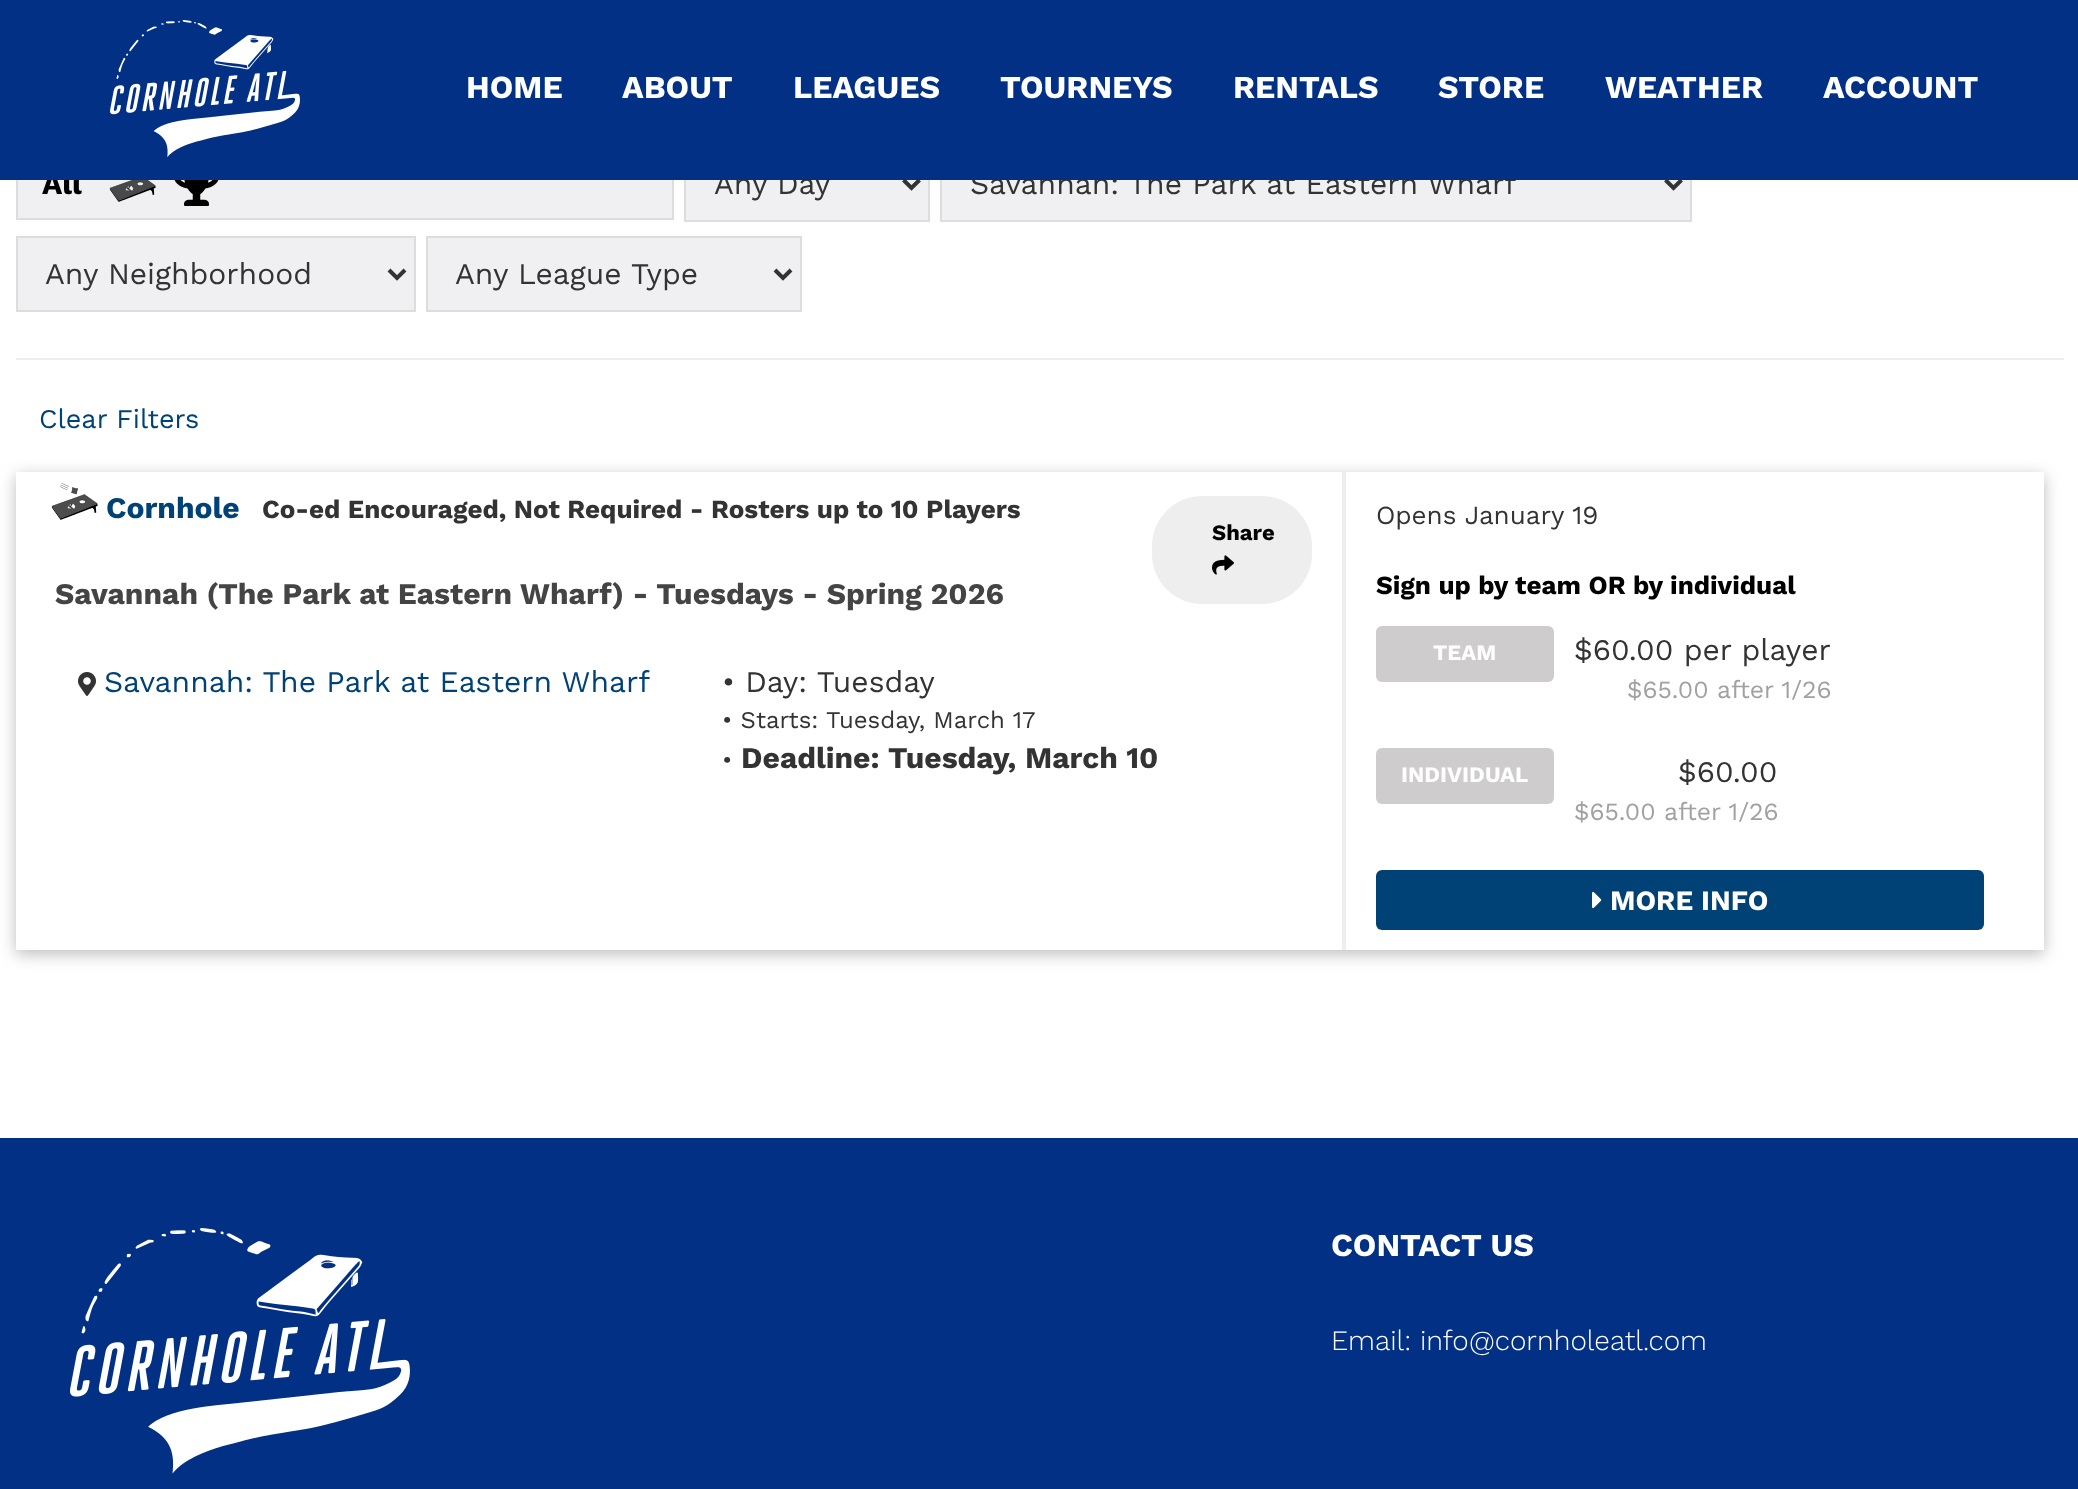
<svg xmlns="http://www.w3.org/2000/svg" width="2078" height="1489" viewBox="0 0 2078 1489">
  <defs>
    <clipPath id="clip1"><path d="M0 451H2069V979H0ZM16 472H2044V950H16Z" clip-rule="evenodd"/></clipPath>
    <filter id="blur1" x="-50%" y="-200%" width="200%" height="500%"><feGaussianBlur stdDeviation="8"/></filter>
  </defs>
  <rect width="100%" height="100%" fill="#ffffff"/>
  <rect x="18" y="180" width="654" height="38" fill="#f0f0f2"/>
  <rect x="17" y="145" width="656" height="74" fill="none" stroke="#dddddd" stroke-width="2"/>
  <text x="42" y="194" font-family="Work Sans" font-size="30" font-weight="bold" fill="#000000">All</text>
  <rect x="686" y="180" width="242" height="40" fill="#f0f0f2"/>
  <rect x="685" y="147" width="244" height="74" fill="none" stroke="#dddddd" stroke-width="2"/>
  <path d="M903.5 180L911.5 188L919.5 180" fill="none" stroke="#333333" stroke-width="4"/>
  <text x="714" y="194" font-family="Work Sans" font-size="30" fill="#333333">Any Day</text>
  <rect x="942" y="180" width="748" height="40" fill="#f0f0f2"/>
  <rect x="941" y="147" width="750" height="74" fill="none" stroke="#dddddd" stroke-width="2"/>
  <path d="M1665.5 180L1673.5 188L1681.5 180" fill="none" stroke="#333333" stroke-width="4"/>
  <text x="970" y="194" font-family="Work Sans" font-size="30" fill="#333333">Savannah: The Park at Eastern Wharf</text>
  <rect x="0" y="0" width="2078" height="180" fill="#013085"/>
  <image x="110" y="20" width="190" height="137" href="img1.png"/>
  <text x="466" y="98" font-family="Work Sans" font-size="32" font-weight="bold" fill="#ffffff">HOME</text>
  <text x="622" y="98" font-family="Work Sans" font-size="32" font-weight="bold" fill="#ffffff">ABOUT</text>
  <text x="793" y="98" font-family="Work Sans" font-size="32" font-weight="bold" fill="#ffffff">LEAGUES</text>
  <text x="1000" y="98" font-family="Work Sans" font-size="32" font-weight="bold" fill="#ffffff">TOURNEYS</text>
  <text x="1233" y="98" font-family="Work Sans" font-size="32" font-weight="bold" fill="#ffffff">RENTALS</text>
  <text x="1438" y="98" font-family="Work Sans" font-size="32" font-weight="bold" fill="#ffffff">STORE</text>
  <text x="1605" y="98" font-family="Work Sans" font-size="32" font-weight="bold" fill="#ffffff">WEATHER</text>
  <text x="1823" y="98" font-family="Work Sans" font-size="32" font-weight="bold" fill="#ffffff">ACCOUNT</text>
  <rect x="16" y="358" width="2048" height="2" fill="#eeeeee"/>
  <image x="109" y="180" width="47" height="22" href="img2.png"/>
  <image x="174" y="180" width="45" height="26" href="img3.png"/>
  <rect x="17" y="237" width="398" height="74" fill="#f0f0f2" stroke="#dddddd" stroke-width="2"/>
  <path d="M389 270L397 278L405 270" fill="none" stroke="#333333" stroke-width="4"/>
  <text x="45" y="284" font-family="Work Sans" font-size="30" fill="#333333">Any Neighborhood</text>
  <rect x="427" y="237" width="374" height="74" fill="#f0f0f2" stroke="#dddddd" stroke-width="2"/>
  <path d="M775 270L783 278L791 270" fill="none" stroke="#333333" stroke-width="4"/>
  <text x="455" y="284" font-family="Work Sans" font-size="30" fill="#333333">Any League Type</text>
  <text x="39" y="428" font-family="Work Sans" font-size="27" fill="#004276">Clear Filters</text>
  <g clip-path="url(#clip1)">
    <rect x="16" y="476" width="2028" height="478" fill="#bbbbbb" filter="url(#blur1)"/>
  </g>
  <image x="51" y="483" width="47" height="37" href="img4.png"/>
  <text x="106" y="518" font-family="Work Sans" font-size="30" font-weight="bold" fill="#004276">Cornhole</text>
  <text x="262" y="518" font-family="Work Sans" font-size="26" font-weight="bold" fill="#333333">Co-ed Encouraged, Not Required - Rosters up to 10 Players</text>
  <rect x="1152" y="496" width="160" height="108" rx="50" fill="#eeeeee"/>
  <text x="1212" y="540" font-family="Work Sans" font-size="22" font-weight="bold" fill="#000000">Share</text>
  <image x="1212" y="555" width="22" height="20" href="img5.png"/>
  <text x="55" y="604" font-family="Work Sans" font-size="30" font-weight="bold" fill="#444444">Savannah (The Park at Eastern Wharf) - Tuesdays - Spring 2026</text>
  <image x="78" y="672" width="18" height="24" href="img6.png"/>
  <text x="104" y="692" font-family="Work Sans" font-size="30" fill="#004276">Savannah: The Park at Eastern Wharf</text>
  <text x="722" y="692" font-family="Work Sans" font-size="30" fill="#333333">• Day: Tuesday</text>
  <text x="722" y="728" font-family="Work Sans" font-size="24" fill="#333333">• Starts: Tuesday, March 17</text>
  <text x="722" y="768" font-family="Work Sans" font-size="24" fill="#333333">•</text>
  <text x="741" y="768" font-family="Work Sans" font-size="30" font-weight="bold" fill="#333333">Deadline: Tuesday, March 10</text>
  <rect x="1342" y="472" width="4" height="478" fill="#eeeeee"/>
  <text x="1376" y="524" font-family="Work Sans" font-size="26" fill="#333333">Opens January 19</text>
  <text x="1376" y="594" font-family="Work Sans" font-size="26" font-weight="bold" fill="#000000">Sign up by team OR by individual</text>
  <rect x="1376" y="626" width="178" height="56" rx="6" fill="#cecccc"/>
  <text x="1433" y="660" font-family="Work Sans" font-size="22" font-weight="bold" fill="#ffffff">TEAM</text>
  <text x="1574" y="660" font-family="Work Sans" font-size="30" fill="#333333">$60.00 per player</text>
  <text x="1627" y="698" font-family="Work Sans" font-size="24.75" fill="#a1a1a1">$65.00 after 1/26</text>
  <rect x="1376" y="748" width="178" height="56" rx="6" fill="#cecccc"/>
  <text x="1401" y="782" font-family="Work Sans" font-size="22" font-weight="bold" fill="#ffffff">INDIVIDUAL</text>
  <text x="1678" y="782" font-family="Work Sans" font-size="30" fill="#333333">$60.00</text>
  <text x="1574" y="820" font-family="Work Sans" font-size="24.75" fill="#a1a1a1">$65.00 after 1/26</text>
  <rect x="1376" y="870" width="608" height="60" rx="6" fill="#004276"/>
  <image x="1592" y="891" width="10" height="18" href="img7.png"/>
  <text x="1610" y="910" font-family="Work Sans" font-size="28" font-weight="bold" fill="#ffffff">MORE INFO</text>
  <rect x="0" y="1138" width="2078" height="351" fill="#013085"/>
  <image x="70" y="1228" width="340" height="246" href="img8.png"/>
  <text x="1331" y="1256" font-family="Work Sans" font-size="32" font-weight="bold" fill="#ffffff">CONTACT US</text>
  <text x="1331" y="1350" font-family="Work Sans" font-size="28" font-weight="300" fill="#ffffff">Email: info@cornholeatl.com</text>
</svg>
